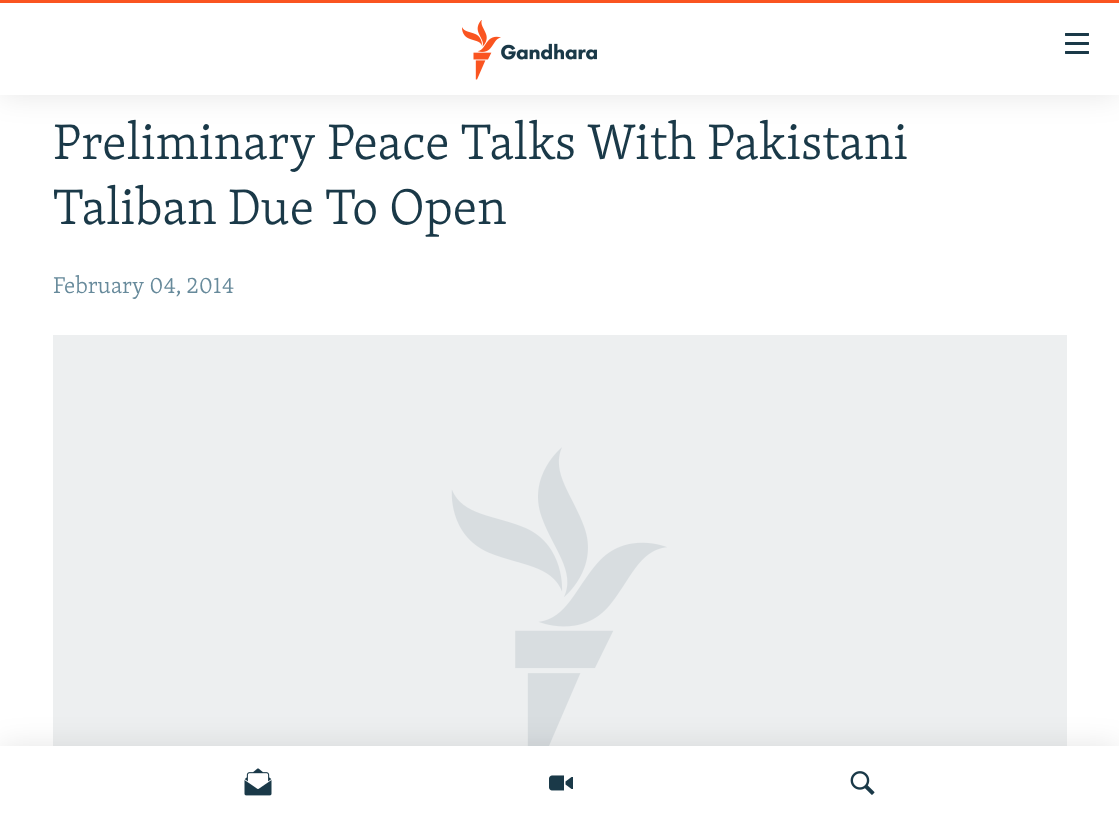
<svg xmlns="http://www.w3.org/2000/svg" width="1119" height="820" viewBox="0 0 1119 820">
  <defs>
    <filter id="blur1" x="-50%" y="-200%" width="200%" height="500%"><feGaussianBlur stdDeviation="15"/></filter>
  </defs>
  <rect width="100%" height="100%" fill="#ffffff"/>
  <rect x="0" y="0" width="1119" height="95" fill="#000000" fill-opacity="0.1" filter="url(#blur1)"/>
  <rect x="0" y="3" width="1119" height="92" fill="#ffffff"/>
  <rect x="0" y="0" width="1119" height="3" fill="#fa5420"/>
  <image x="462" y="20" width="135" height="60" href="img1.png"/>
  <image x="1065" y="33" width="24" height="21" href="img2.png"/>
  <rect x="53" y="335" width="1014" height="411" fill="#edeff0"/>
  <image x="451" y="447" width="216" height="299" href="img6.png"/>
  <rect x="0" y="746" width="1119" height="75" fill="#000000" fill-opacity="0.1" filter="url(#blur1)"/>
  <rect x="0" y="746" width="1119" height="74" fill="#ffffff"/>
  <image x="244" y="768" width="28" height="28" href="img3.png"/>
  <image x="549" y="775" width="24" height="16" href="img4.png"/>
  <image x="850" y="771" width="25" height="24" href="img5.png"/>
  <text x="53" y="159" font-family="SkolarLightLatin" font-size="51.25" font-weight="300" fill="#1a3948">Preliminary Peace Talks With Pakistani</text>
  <text x="53" y="224" font-family="SkolarLightLatin" font-size="51.25" font-weight="300" fill="#1a3948">Taliban Due To Open</text>
  <text x="53" y="293" font-family="SkolarLightLatin" font-size="23.5" font-weight="300" fill="#678a9b">February 04, 2014</text>
</svg>
